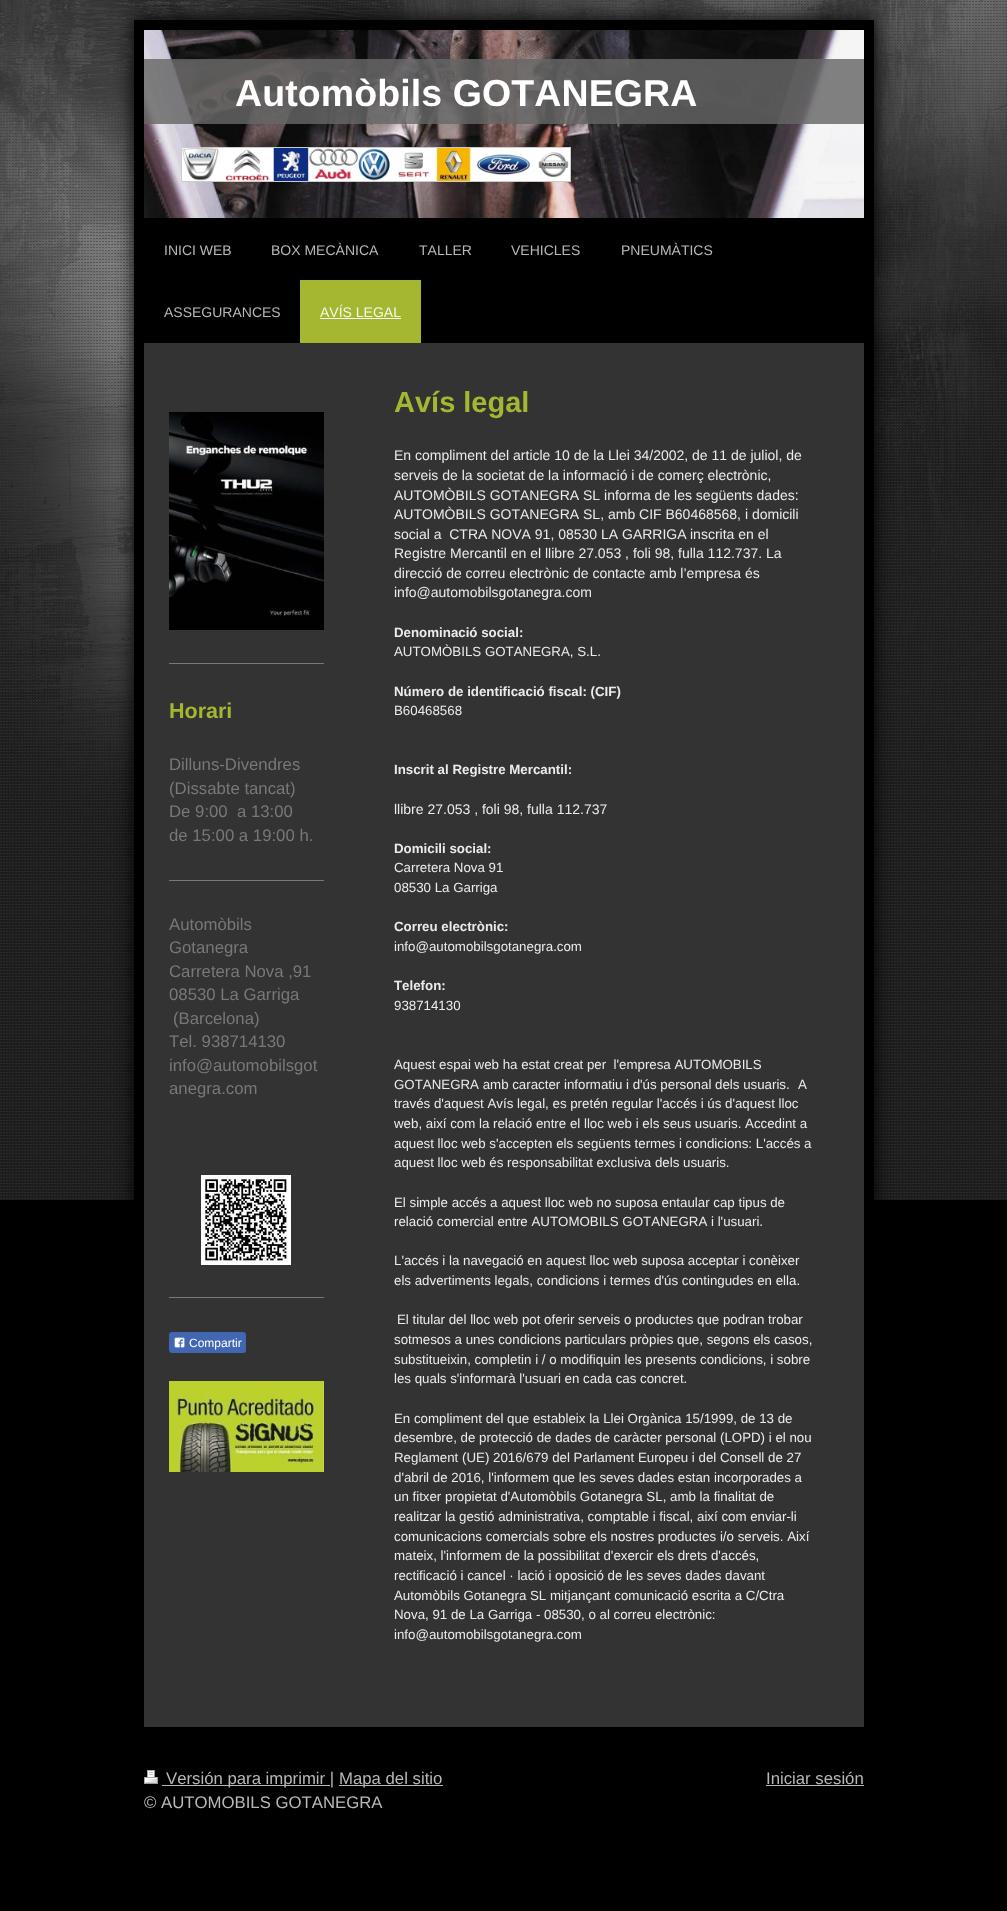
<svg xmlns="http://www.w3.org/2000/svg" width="1007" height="1911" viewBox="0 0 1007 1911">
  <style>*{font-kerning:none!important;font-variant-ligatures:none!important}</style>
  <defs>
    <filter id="blur1" x="-50%" y="-200%" width="200%" height="500%"><feGaussianBlur stdDeviation="10"/></filter>
    <clipPath id="clip1"><rect x="144" y="1767" width="720" height="47"/></clipPath>
  </defs>
  <rect width="100%" height="100%" fill="#000000"/>
  <image x="0" y="0" width="1007" height="1200" href="img1.png"/>
  <rect x="134" y="20" width="740" height="1717" fill="#000000" filter="url(#blur1)"/>
  <rect x="134" y="20" width="740" height="1180" fill="#000000"/>
  <image x="144" y="30" width="720" height="188" href="img2.png"/>
  <rect x="144" y="59" width="720" height="65" fill="#666666" fill-opacity="0.82"/>
  <text x="235" y="106" font-family="Liberation Sans" font-size="37.5" font-weight="bold" letter-spacing="0.1" fill="#ffffff">Automòbils GOTANEGRA</text>
  <rect x="181.5" y="147.5" width="389" height="34" fill="none" stroke="#cccccc"/>
  <image x="182" y="148" width="388" height="33" href="img3.png"/>
  <text x="164" y="255" font-family="Liberation Sans" font-size="14" fill="#b8b8b8">INICI WEB</text>
  <text x="271" y="255" font-family="Liberation Sans" font-size="14" fill="#b8b8b8">BOX MECÀNICA</text>
  <text x="419" y="255" font-family="Liberation Sans" font-size="14" fill="#b8b8b8">TALLER</text>
  <text x="511" y="255" font-family="Liberation Sans" font-size="14" fill="#b8b8b8">VEHICLES</text>
  <text x="621" y="255" font-family="Liberation Sans" font-size="14" fill="#b8b8b8">PNEUMÀTICS</text>
  <text x="164" y="317" font-family="Liberation Sans" font-size="14" fill="#b8b8b8">ASSEGURANCES</text>
  <rect x="300" y="280" width="121" height="63" fill="#a5b730"/>
  <text x="320" y="317" font-family="Liberation Sans" font-size="14" fill="#f6f8ea">AVÍS LEGAL</text>
  <rect x="320" y="318" width="81" height="1" fill="#f6f8ea"/>
  <rect x="144" y="343" width="720" height="1384" fill="#333333"/>
  <image x="169" y="412" width="155" height="218" href="img4.png"/>
  <rect x="169" y="663" width="155" height="1" fill="#787878"/>
  <text x="169" y="718" font-family="Liberation Sans" font-size="21.5" font-weight="bold" fill="#a5b730">Horari</text>
  <text x="169" y="770" font-family="Liberation Sans" font-size="16.75" fill="#787878">Dilluns-Divendres</text>
  <text x="169" y="794" font-family="Liberation Sans" font-size="16.75" fill="#787878">(Dissabte tancat)</text>
  <text x="169" y="817" font-family="Liberation Sans" font-size="16.75" fill="#787878" xml:space="preserve">De 9:00  a 13:00</text>
  <text x="169" y="841" font-family="Liberation Sans" font-size="16.75" fill="#787878">de 15:00 a 19:00 h.</text>
  <rect x="169" y="880" width="155" height="1" fill="#787878"/>
  <text x="169" y="930" font-family="Liberation Sans" font-size="16.75" fill="#787878">Automòbils</text>
  <text x="169" y="953" font-family="Liberation Sans" font-size="16.75" fill="#787878">Gotanegra</text>
  <text x="169" y="977" font-family="Liberation Sans" font-size="16.75" fill="#787878">Carretera Nova ,91</text>
  <text x="169" y="1000" font-family="Liberation Sans" font-size="16.75" fill="#787878">08530 La Garriga</text>
  <text x="173" y="1024" font-family="Liberation Sans" font-size="16.75" fill="#787878">(Barcelona)</text>
  <text x="169" y="1047" font-family="Liberation Sans" font-size="16.75" fill="#787878">Tel. 938714130</text>
  <text x="169" y="1071" font-family="Liberation Sans" font-size="16.75" fill="#787878">info@automobilsgot</text>
  <text x="169" y="1094" font-family="Liberation Sans" font-size="16.75" fill="#787878">anegra.com</text>
  <image x="201" y="1175" width="90" height="90" href="img5.png"/>
  <rect x="169" y="1297" width="155" height="1" fill="#787878"/>
  <rect x="169" y="1332" width="77" height="21" rx="3" fill="#4267b2"/>
  <image x="174" y="1337" width="11" height="11" href="img6.png"/>
  <text x="189" y="1347" font-family="Liberation Sans" font-size="12" fill="#ffffff">Compartir</text>
  <image x="169" y="1381" width="155" height="91" href="img7.png"/>
  <text x="394" y="412" font-family="Liberation Sans" font-size="29" font-weight="bold" fill="#a5b730">Avís legal</text>
  <text x="394" y="460" font-family="Liberation Sans" font-size="14" fill="#ebebeb">En compliment del article 10 de la Llei 34/2002, de 11 de juliol, de</text>
  <text x="394" y="480" font-family="Liberation Sans" font-size="14" fill="#ebebeb">serveis de la societat de la informació i de comerç electrònic,</text>
  <text x="394" y="500" font-family="Liberation Sans" font-size="14" fill="#ebebeb">AUTOMÒBILS GOTANEGRA SL informa de les següents dades:</text>
  <text x="394" y="519" font-family="Liberation Sans" font-size="14" fill="#ebebeb">AUTOMÒBILS GOTANEGRA SL, amb CIF B60468568, i domicili</text>
  <text x="394" y="539" font-family="Liberation Sans" font-size="14" fill="#ebebeb" xml:space="preserve">social a  CTRA NOVA 91, 08530 LA GARRIGA</text>
  <text x="690" y="539" font-family="Liberation Sans" font-size="14" fill="#ebebeb">inscrita en el</text>
  <text x="394" y="558" font-family="Liberation Sans" font-size="14" fill="#ebebeb">Registre Mercantil en el llibre 27.053 , foli 98, fulla 112.737. La</text>
  <text x="394" y="578" font-family="Liberation Sans" font-size="14" fill="#ebebeb">direcció de correu electrònic de contacte amb l’empresa és</text>
  <text x="394" y="597" font-family="Liberation Sans" font-size="14" fill="#ebebeb">info@automobilsgotanegra.com</text>
  <text x="394" y="637" font-family="Liberation Sans" font-size="13.3" font-weight="bold" fill="#ebebeb">Denominació social:</text>
  <text x="394" y="656" font-family="Liberation Sans" font-size="13.3" fill="#ebebeb">AUTOMÒBILS GOTANEGRA, S.L.</text>
  <text x="394" y="696" font-family="Liberation Sans" font-size="13.3" font-weight="bold" fill="#ebebeb">Número de identificació fiscal: (CIF)</text>
  <text x="394" y="715" font-family="Liberation Sans" font-size="13.3" fill="#ebebeb">B60468568</text>
  <text x="394" y="774" font-family="Liberation Sans" font-size="13.3" font-weight="bold" fill="#ebebeb">Inscrit al Registre Mercantil:</text>
  <text x="394" y="814" font-family="Liberation Sans" font-size="14" fill="#ebebeb">llibre 27.053 , foli 98, fulla 112.737</text>
  <text x="394" y="853" font-family="Liberation Sans" font-size="13.3" font-weight="bold" fill="#ebebeb">Domicili social:</text>
  <text x="394" y="872" font-family="Liberation Sans" font-size="13.3" fill="#ebebeb">Carretera Nova 91</text>
  <text x="394" y="892" font-family="Liberation Sans" font-size="13.3" fill="#ebebeb">08530 La Garriga</text>
  <text x="394" y="931" font-family="Liberation Sans" font-size="13.3" font-weight="bold" fill="#ebebeb">Correu electrònic:</text>
  <text x="394" y="951" font-family="Liberation Sans" font-size="13.3" fill="#ebebeb">info@automobilsgotanegra.com</text>
  <text x="394" y="990" font-family="Liberation Sans" font-size="13.3" font-weight="bold" fill="#ebebeb">Telefon:</text>
  <text x="394" y="1010" font-family="Liberation Sans" font-size="13.3" fill="#ebebeb">938714130</text>
  <text x="394" y="1069" font-family="Liberation Sans" font-size="13.3" fill="#ebebeb" xml:space="preserve">Aquest espai web ha estat creat per  l'empresa AUTOMOBILS</text>
  <text x="394" y="1089" font-family="Liberation Sans" font-size="13.3" fill="#ebebeb">GOTANEGRA amb caracter informatiu i d'ús personal dels usuaris.</text>
  <text x="798" y="1089" font-family="Liberation Sans" font-size="13.3" fill="#ebebeb">A</text>
  <text x="394" y="1108" font-family="Liberation Sans" font-size="13.3" fill="#ebebeb">través d'aquest Avís legal, es pretén regular l'accés i ús d'aquest lloc</text>
  <text x="394" y="1128" font-family="Liberation Sans" font-size="13.3" fill="#ebebeb">web, així com la relació entre el lloc web i els seus usuaris. Accedint a</text>
  <text x="394" y="1148" font-family="Liberation Sans" font-size="13.3" fill="#ebebeb">aquest lloc web s'accepten els següents termes i condicions: L'accés a</text>
  <text x="394" y="1167" font-family="Liberation Sans" font-size="13.3" fill="#ebebeb">aquest lloc web és responsabilitat exclusiva dels usuaris.</text>
  <text x="394" y="1207" font-family="Liberation Sans" font-size="13.3" fill="#ebebeb">El simple accés a aquest lloc web no suposa entaular cap tipus de</text>
  <text x="394" y="1226" font-family="Liberation Sans" font-size="13.3" fill="#ebebeb">relació comercial entre AUTOMOBILS GOTANEGRA i l'usuari.</text>
  <text x="394" y="1265" font-family="Liberation Sans" font-size="13.3" fill="#ebebeb">L'accés i la navegació en aquest lloc web suposa acceptar i conèixer</text>
  <text x="394" y="1285" font-family="Liberation Sans" font-size="13.3" fill="#ebebeb">els advertiments legals, condicions i termes d'ús contingudes en ella.</text>
  <text x="397" y="1324" font-family="Liberation Sans" font-size="13.3" fill="#ebebeb">El titular del lloc web pot oferir serveis o productes que podran trobar</text>
  <text x="394" y="1344" font-family="Liberation Sans" font-size="13.3" fill="#ebebeb">sotmesos a unes condicions particulars pròpies que, segons els casos,</text>
  <text x="394" y="1364" font-family="Liberation Sans" font-size="13.3" fill="#ebebeb">substitueixin, completin i / o modifiquin les presents condicions, i sobre</text>
  <text x="394" y="1383" font-family="Liberation Sans" font-size="13.3" fill="#ebebeb">les quals s'informarà l'usuari en cada cas concret.</text>
  <text x="394" y="1423" font-family="Liberation Sans" font-size="13.3" fill="#ebebeb">En compliment del que estableix la Llei Orgànica 15/1999, de 13 de</text>
  <text x="394" y="1442" font-family="Liberation Sans" font-size="13.3" fill="#ebebeb">desembre, de protecció de dades de caràcter personal (LOPD) i el nou</text>
  <text x="394" y="1462" font-family="Liberation Sans" font-size="13.3" fill="#ebebeb">Reglament (UE) 2016/679 del Parlament Europeu i del Consell de 27</text>
  <text x="394" y="1482" font-family="Liberation Sans" font-size="13.3" fill="#ebebeb">d'abril de 2016, l'informem que les seves dades estan incorporades a</text>
  <text x="394" y="1501" font-family="Liberation Sans" font-size="13.3" fill="#ebebeb">un fitxer propietat d'Automòbils Gotanegra SL, amb la finalitat de</text>
  <text x="394" y="1521" font-family="Liberation Sans" font-size="13.3" fill="#ebebeb">realitzar la gestió administrativa, comptable i fiscal, així com enviar-li</text>
  <text x="394" y="1541" font-family="Liberation Sans" font-size="13.3" fill="#ebebeb">comunicacions comercials sobre els nostres productes i/o serveis. Així</text>
  <text x="394" y="1560" font-family="Liberation Sans" font-size="13.3" fill="#ebebeb">mateix, l'informem de la possibilitat d'exercir els drets d'accés,</text>
  <text x="394" y="1580" font-family="Liberation Sans" font-size="13.3" fill="#ebebeb">rectificació i cancel · lació i oposició de les seves dades davant</text>
  <text x="394" y="1600" font-family="Liberation Sans" font-size="13.3" fill="#ebebeb">Automòbils Gotanegra SL mitjançant comunicació escrita a C/Ctra</text>
  <text x="394" y="1619" font-family="Liberation Sans" font-size="13.3" fill="#ebebeb">Nova, 91 de La Garriga - 08530, o al correu electrònic:</text>
  <text x="394" y="1639" font-family="Liberation Sans" font-size="13.3" fill="#ebebeb">info@automobilsgotanegra.com</text>
  <image x="144" y="1770" width="14" height="14" href="img8.png"/>
  <rect x="162" y="1785" width="168" height="1" fill="#b8b8b8"/>
  <text x="166" y="1784" font-family="Liberation Sans" font-size="16.75" fill="#b8b8b8">Versión para imprimir |</text>
  <rect x="339" y="1785" width="104" height="1" fill="#b8b8b8"/>
  <text x="339" y="1784" font-family="Liberation Sans" font-size="16.75" fill="#b8b8b8">Mapa del sitio</text>
  <g clip-path="url(#clip1)">
    <text x="144" y="1808" font-family="Liberation Sans" font-size="16.75" fill="#b8b8b8">© AUTOMOBILS GOTANEGRA</text>
  </g>
  <text x="766" y="1784" font-family="Liberation Sans" font-size="16.75" fill="#b8b8b8">Iniciar sesión</text>
  <rect x="766" y="1785" width="98" height="1" fill="#b8b8b8"/>
</svg>
